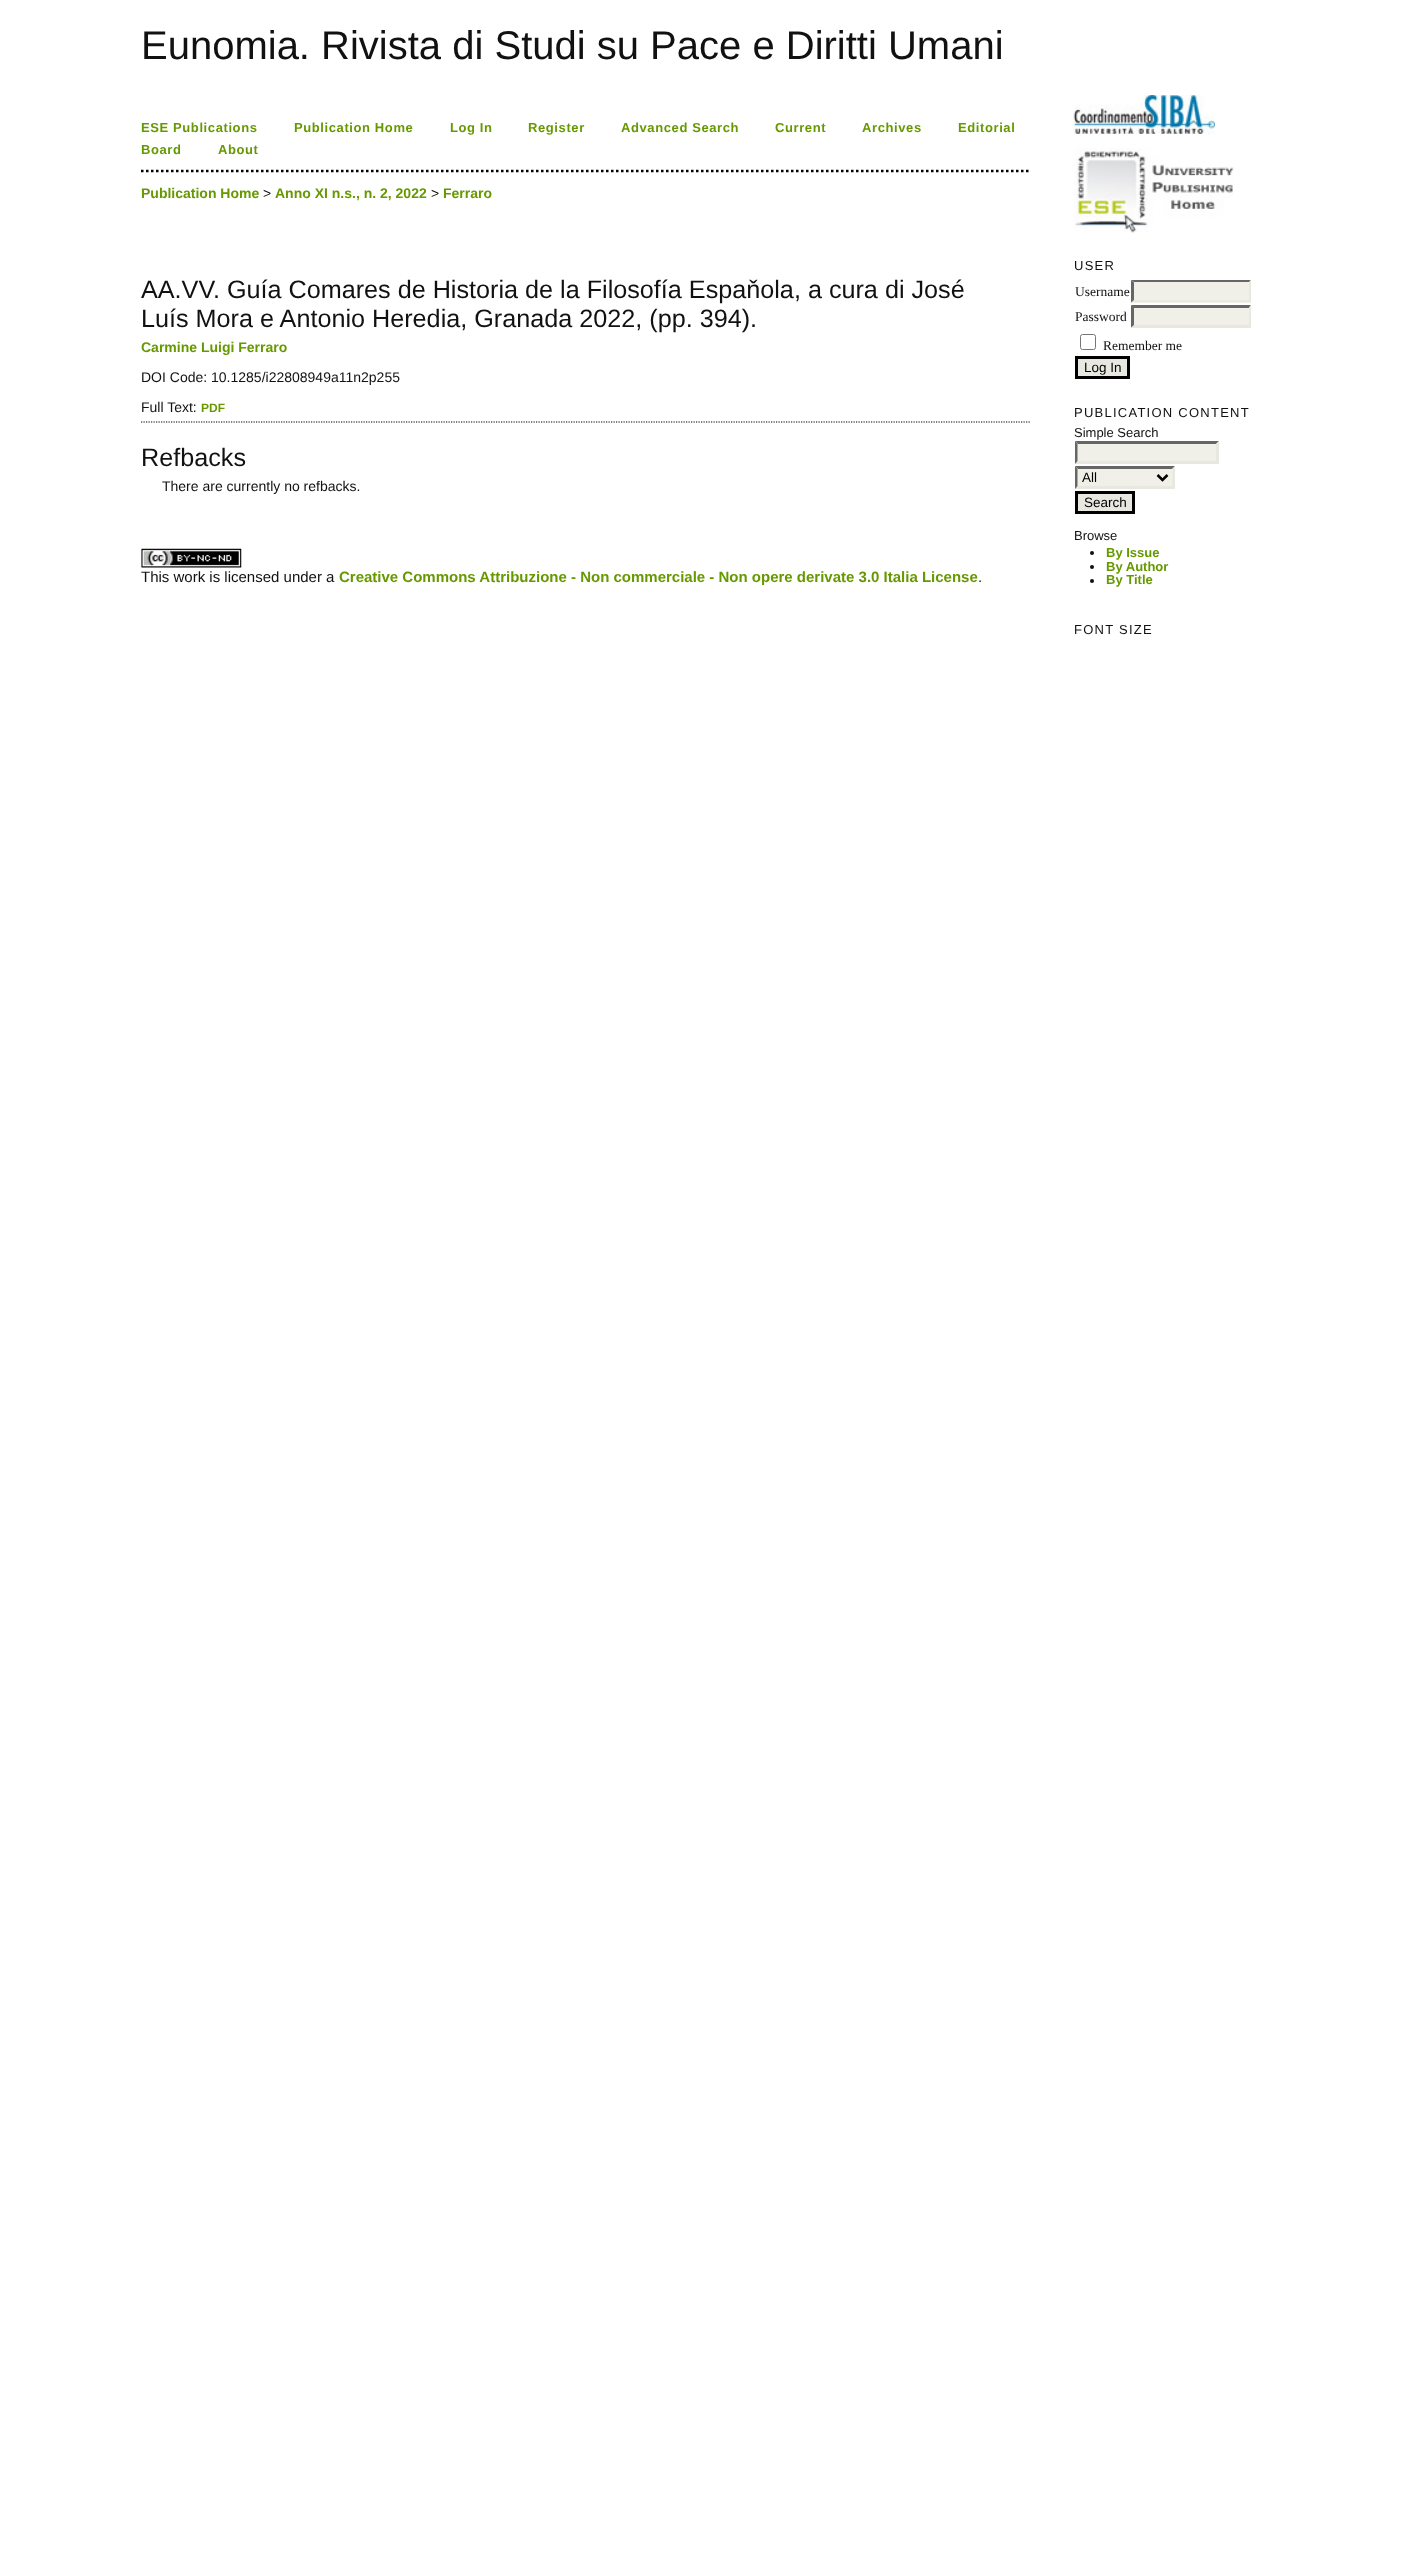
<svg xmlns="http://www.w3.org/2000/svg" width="1412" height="2573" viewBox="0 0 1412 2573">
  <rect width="100%" height="100%" fill="#ffffff"/>
  <text x="141" y="59" font-family="Liberation Sans" font-size="40" fill="#111111">Eunomia. Rivista di Studi su Pace e Diritti Umani</text>
  <path d="M141 171H1031" fill="none" stroke="#000000" stroke-width="2.5" stroke-dasharray="2.5 2.5"/>
  <text x="141" y="132" font-family="Liberation Sans" font-size="13" font-weight="bold" letter-spacing="0.6" fill="#669900">ESE Publications</text>
  <text x="294" y="132" font-family="Liberation Sans" font-size="13" font-weight="bold" letter-spacing="0.6" fill="#669900">Publication Home</text>
  <text x="450" y="132" font-family="Liberation Sans" font-size="13" font-weight="bold" letter-spacing="0.6" fill="#669900">Log In</text>
  <text x="528" y="132" font-family="Liberation Sans" font-size="13" font-weight="bold" letter-spacing="0.6" fill="#669900">Register</text>
  <text x="621" y="132" font-family="Liberation Sans" font-size="13" font-weight="bold" letter-spacing="0.6" fill="#669900">Advanced Search</text>
  <text x="775" y="132" font-family="Liberation Sans" font-size="13" font-weight="bold" letter-spacing="0.6" fill="#669900">Current</text>
  <text x="862" y="132" font-family="Liberation Sans" font-size="13" font-weight="bold" letter-spacing="0.6" fill="#669900">Archives</text>
  <text x="958" y="132" font-family="Liberation Sans" font-size="13" font-weight="bold" letter-spacing="0.6" fill="#669900">Editorial</text>
  <text x="141" y="154" font-family="Liberation Sans" font-size="13" font-weight="bold" letter-spacing="0.6" fill="#669900">Board</text>
  <text x="218" y="154" font-family="Liberation Sans" font-size="13" font-weight="bold" letter-spacing="0.6" fill="#669900">About</text>
  <text x="141" y="198" font-family="Liberation Sans" font-size="14" font-weight="bold" fill="#669900">Publication Home</text>
  <text x="263" y="198" font-family="Liberation Sans" font-size="14" fill="#111111">&gt;</text>
  <text x="275" y="198" font-family="Liberation Sans" font-size="14" font-weight="bold" fill="#669900">Anno XI n.s., n. 2, 2022</text>
  <text x="431" y="198" font-family="Liberation Sans" font-size="14" fill="#111111">&gt;</text>
  <text x="443" y="198" font-family="Liberation Sans" font-size="14" font-weight="bold" fill="#669900">Ferraro</text>
  <text x="141" y="298" font-family="Liberation Sans" font-size="25.2" fill="#111111">AA.VV. Guía Comares de Historia de la Filosofía Espaňola, a cura di José</text>
  <text x="141" y="327" font-family="Liberation Sans" font-size="25.2" fill="#111111">Luís Mora e Antonio Heredia, Granada 2022, (pp. 394).</text>
  <text x="141" y="352" font-family="Liberation Sans" font-size="14" font-weight="bold" fill="#669900">Carmine Luigi Ferraro</text>
  <text x="141" y="382" font-family="Liberation Sans" font-size="14" fill="#111111">DOI Code: 10.1285/i22808949a11n2p255</text>
  <text x="141" y="412" font-family="Liberation Sans" font-size="14" fill="#111111">Full Text:</text>
  <text x="201" y="412" font-family="Liberation Sans" font-size="12" font-weight="bold" fill="#669900">PDF</text>
  <path d="M141 422H1031" fill="none" stroke="#000000" stroke-width="1.2" stroke-dasharray="1.25 1.25"/>
  <text x="141" y="466" font-family="Liberation Sans" font-size="25.2" fill="#111111">Refbacks</text>
  <text x="162" y="491" font-family="Liberation Sans" font-size="14" fill="#111111">There are currently no refbacks.</text>
  <image x="141" y="548" width="101" height="20" href="img1.png"/>
  <text x="141" y="582" font-family="Liberation Sans" font-size="15" fill="#111111">This work is licensed under a</text>
  <text x="339" y="582" font-family="Liberation Sans" font-size="15" font-weight="bold" fill="#669900">Creative Commons Attribuzione - Non commerciale - Non opere derivate 3.0 Italia License</text>
  <text x="978" y="582" font-family="Liberation Sans" font-size="15" fill="#111111">.</text>
  <image x="1073" y="95" width="142" height="39" href="img2.png"/>
  <image x="1074" y="148" width="160" height="85" href="img3.png"/>
  <text x="1074" y="270" font-family="Liberation Sans" font-size="13" letter-spacing="1.25" fill="#111111">USER</text>
  <text x="1075" y="296" font-family="Liberation Serif" font-size="13.5" fill="#111111">Username</text>
  <rect x="1131" y="280" width="120" height="23" fill="#f0f0e8"/>
  <path d="M1131 280H1251L1249 282H1134Z" fill="#666666"/>
  <path d="M1251 280V302.5L1249 300V282.5Z" fill="#e8e8e1"/>
  <path d="M1251 302H1131L1134 300H1249Z" fill="#e8e8e1"/>
  <path d="M1131 302.5V280L1134 282.5V300Z" fill="#666666"/>
  <text x="1075" y="321" font-family="Liberation Serif" font-size="13.5" fill="#111111">Password</text>
  <rect x="1131" y="305" width="120" height="23" fill="#f0f0e8"/>
  <path d="M1131 305H1251L1249 308H1134Z" fill="#666666"/>
  <path d="M1251 305V327.5L1249 325V307.5Z" fill="#e8e8e1"/>
  <path d="M1251 328H1131L1134 325H1249Z" fill="#e8e8e1"/>
  <path d="M1131 327.5V305L1134 307.5V325Z" fill="#666666"/>
  <rect x="1080.5" y="334.5" width="15" height="15" rx="2" fill="none" stroke="#767676"/>
  <text x="1103" y="350" font-family="Liberation Serif" font-size="13.5" fill="#111111">Remember me</text>
  <rect x="1076.5" y="357.5" width="52" height="20" fill="#e8e8e1" stroke="#000000" stroke-width="3"/>
  <text x="1084" y="372" font-family="Liberation Sans" font-size="13.5" fill="#000000">Log In</text>
  <text x="1074" y="417" font-family="Liberation Sans" font-size="13" letter-spacing="1.25" fill="#111111">PUBLICATION CONTENT</text>
  <text x="1074" y="437" font-family="Liberation Sans" font-size="13" fill="#111111">Simple Search</text>
  <rect x="1075" y="441" width="144" height="23" fill="#f0f0e8"/>
  <path d="M1075 441H1219L1216 444H1078Z" fill="#666666"/>
  <path d="M1219 441V464L1216 461V444Z" fill="#e8e8e1"/>
  <path d="M1219 464H1075L1078 461H1216Z" fill="#e8e8e1"/>
  <path d="M1075 464V441L1077.5 444V461Z" fill="#666666"/>
  <rect x="1075" y="466" width="100" height="23" fill="#f0f0e8"/>
  <path d="M1075 466H1175L1172 469H1078Z" fill="#666666"/>
  <path d="M1175 466V489L1172.5 486V469Z" fill="#e8e8e1"/>
  <path d="M1175 489H1075L1078 486H1172Z" fill="#e8e8e1"/>
  <path d="M1075 489V466L1077.5 469V486Z" fill="#666666"/>
  <path d="M1157.5 475L1162.5 480L1167.5 475" fill="none" stroke="#000000" stroke-width="2.5"/>
  <text x="1082" y="482" font-family="Liberation Sans" font-size="13.5" fill="#000000">All</text>
  <rect x="1076.5" y="492.5" width="57" height="20" fill="#e8e8e1" stroke="#000000" stroke-width="3"/>
  <text x="1084" y="507" font-family="Liberation Sans" font-size="13.5" fill="#000000">Search</text>
  <text x="1074" y="540" font-family="Liberation Sans" font-size="13" fill="#111111">Browse</text>
  <circle cx="1092" cy="553" r="2" fill="#111111"/>
  <text x="1106" y="557" font-family="Liberation Sans" font-size="13" font-weight="bold" fill="#669900">By Issue</text>
  <circle cx="1092" cy="567" r="2" fill="#111111"/>
  <text x="1106" y="571" font-family="Liberation Sans" font-size="13" font-weight="bold" fill="#669900">By Author</text>
  <circle cx="1092" cy="581" r="2" fill="#111111"/>
  <text x="1106" y="584" font-family="Liberation Sans" font-size="13" font-weight="bold" fill="#669900">By Title</text>
  <text x="1074" y="634" font-family="Liberation Sans" font-size="13" letter-spacing="1.25" fill="#111111">FONT SIZE</text>
</svg>
